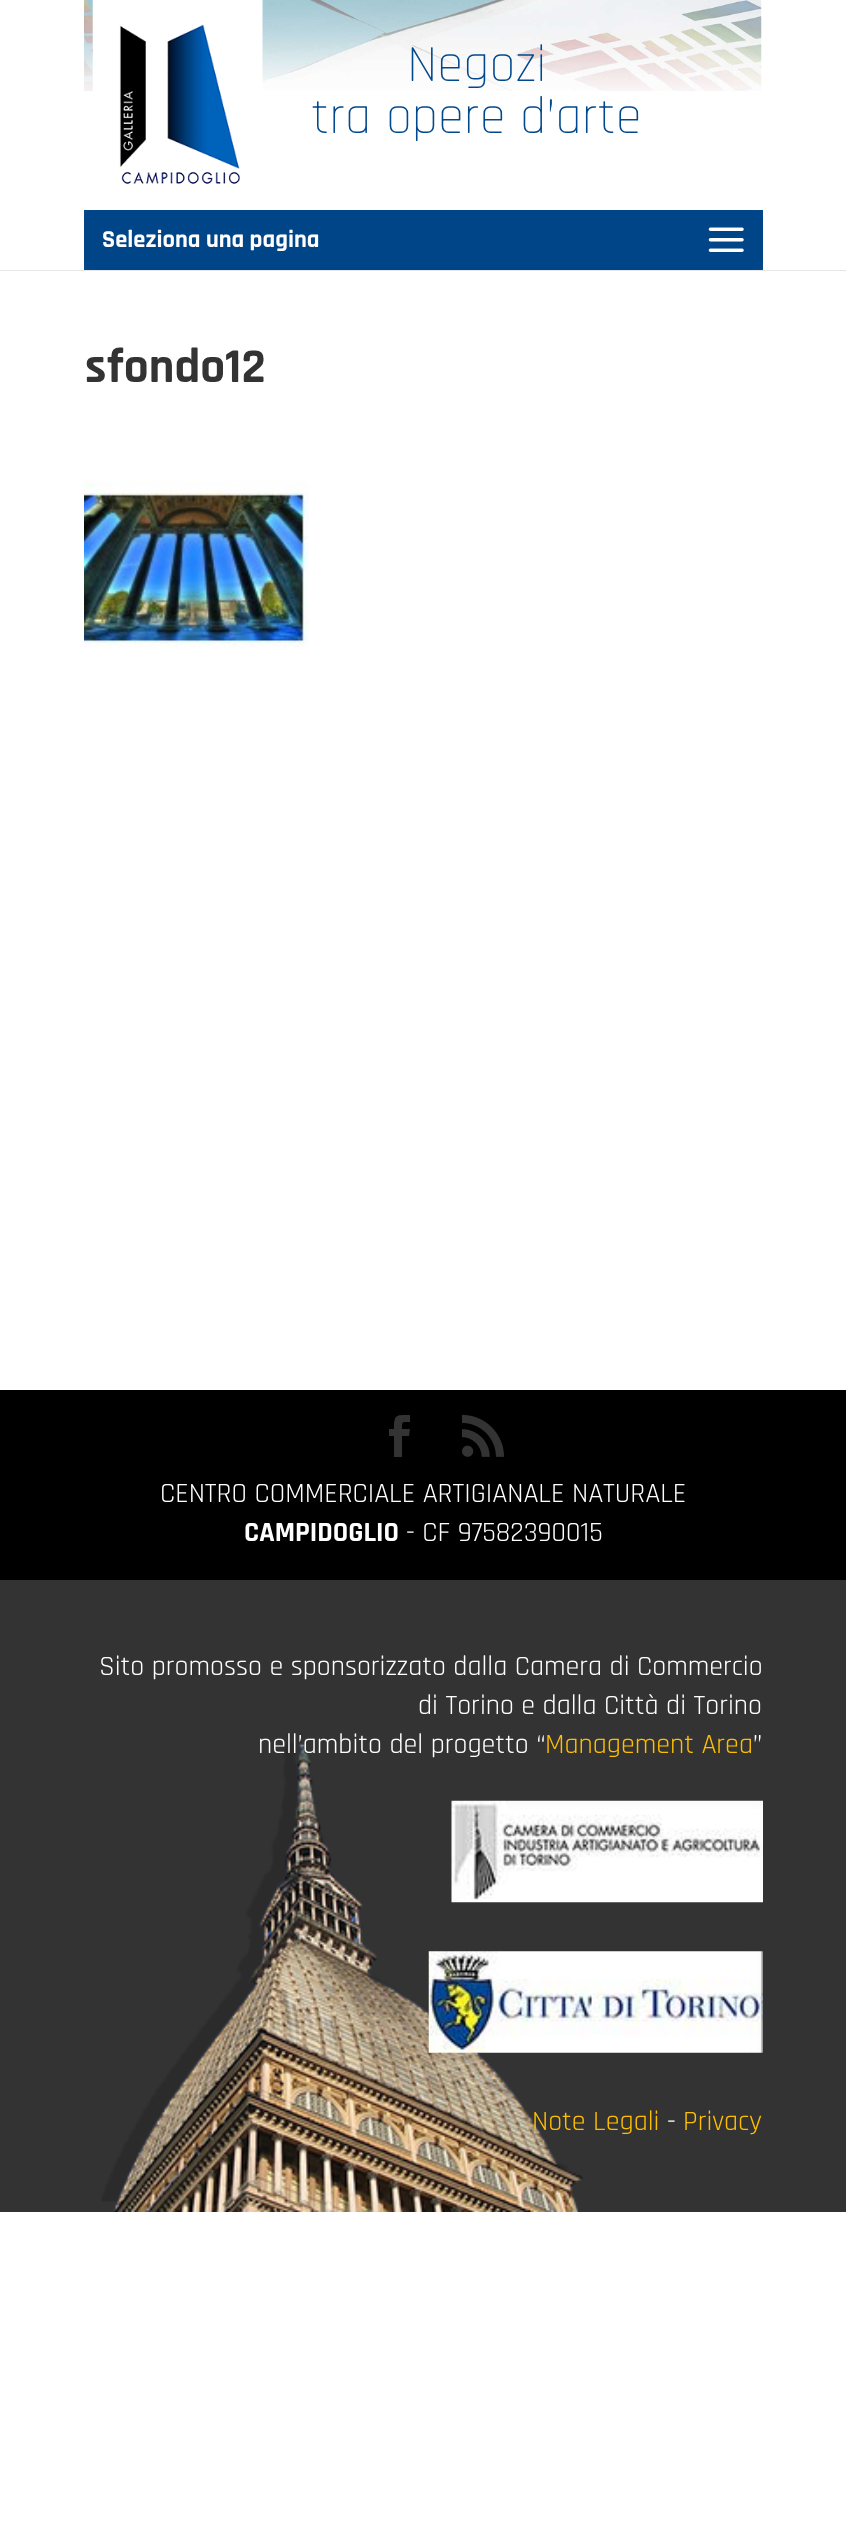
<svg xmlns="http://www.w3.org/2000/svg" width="846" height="2533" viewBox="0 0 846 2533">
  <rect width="100%" height="100%" fill="#ffffff"/>
  <rect x="0" y="270" width="846" height="1" fill="#e6e6e6"/>
  <image x="84" y="0" width="678" height="91" href="img1.png"/>
  <image x="92" y="0" width="171" height="185" href="img2.png"/>
  <text x="407" y="81" font-family="Rajdhani" font-size="52.5" font-weight="300" fill="#00498e">Negozi</text>
  <text x="311" y="133" font-family="Rajdhani" font-size="52.5" font-weight="300" fill="#00498e">tra opere d’arte</text>
  <rect x="84" y="210" width="679" height="60" fill="#00498e"/>
  <rect x="84" y="210" width="679" height="60" rx="9" fill="#004587"/>
  <text x="102" y="247" font-family="Rajdhani" font-size="24.5" font-weight="bold" fill="#ffffff">Seleziona una pagina</text>
  <image x="708" y="227" width="36" height="25" href="img3.png"/>
  <text x="85" y="382" font-family="Rajdhani" font-size="49" font-weight="bold" fill="#333333">sfondo12</text>
  <image x="84" y="480" width="225" height="168" href="img4.png"/>
  <rect x="0" y="1580" width="846" height="632" fill="#333333"/>
  <rect x="0" y="1390" width="846" height="190" fill="#000000"/>
  <path d="M394 1457H402V1436H409L410 1429H402C402 1421 402 1422 410 1422V1415C396 1415 394 1414 394 1429H389V1436H394Z" fill="#333333"/>
  <image x="462" y="1414" width="42" height="43" href="img5.png"/>
  <text x="160" y="1502" font-family="Rajdhani" font-size="28" fill="#ffffff">CENTRO COMMERCIALE ARTIGIANALE NATURALE</text>
  <text x="244" y="1541" font-family="Rajdhani" font-size="28" font-weight="bold" fill="#ffffff">CAMPIDOGLIO</text>
  <text x="406" y="1541" font-family="Rajdhani" font-size="28" fill="#ffffff">- CF 97582390015</text>
  <image x="101" y="1734" width="482" height="478" href="img6.png"/>
  <text x="99" y="1675" font-family="Rajdhani" font-size="28" fill="#ffffff">Sito promosso e sponsorizzato dalla Camera di Commercio</text>
  <text x="418" y="1714" font-family="Rajdhani" font-size="28" fill="#ffffff">di Torino e dalla Città di Torino</text>
  <text x="258" y="1753" font-family="Rajdhani" font-size="28" fill="#ffffff">nell’ambito del progetto “</text>
  <text x="545" y="1753" font-family="Rajdhani" font-size="28" fill="#ffbf00">Management Area</text>
  <text x="753" y="1753" font-family="Rajdhani" font-size="28" fill="#ffffff">”</text>
  <image x="451" y="1800" width="312" height="103" href="img7.png"/>
  <image x="428" y="1951" width="335" height="102" href="img8.png"/>
  <text x="532" y="2130" font-family="Rajdhani" font-size="28" fill="#ffbf00">Note Legali</text>
  <text x="667" y="2130" font-family="Rajdhani" font-size="28" fill="#ffffff">-</text>
  <text x="683" y="2130" font-family="Rajdhani" font-size="28" fill="#ffbf00">Privacy</text>
</svg>
